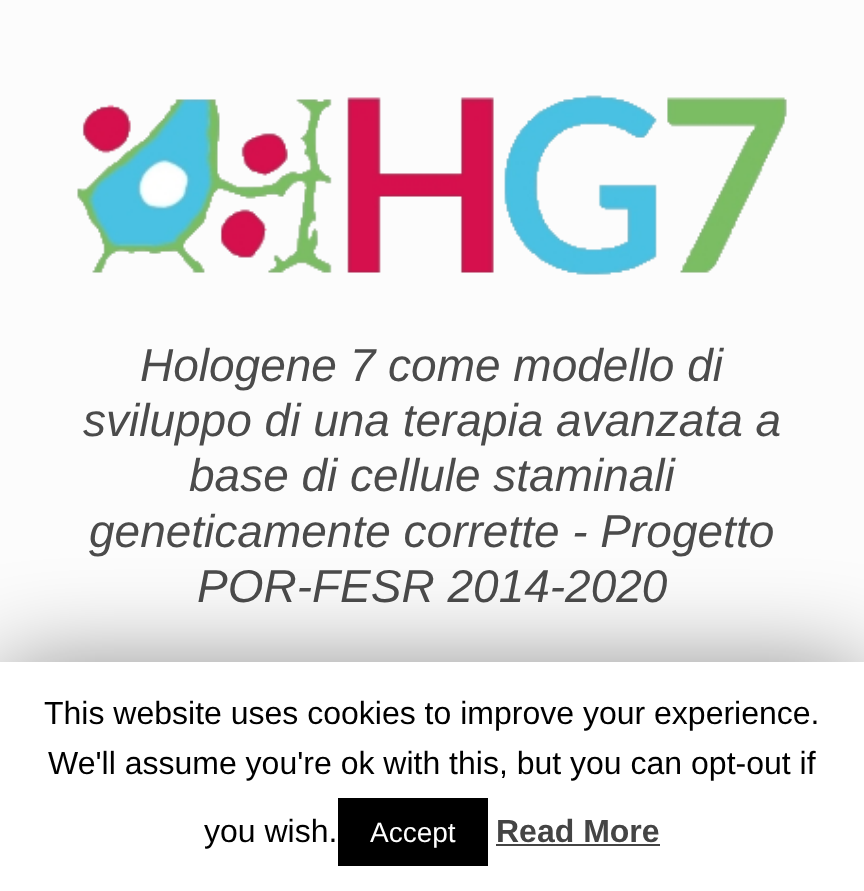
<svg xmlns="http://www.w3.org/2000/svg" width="864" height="891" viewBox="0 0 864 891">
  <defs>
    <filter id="blur1" x="-50%" y="-200%" width="200%" height="500%"><feGaussianBlur stdDeviation="50"/></filter>
  </defs>
  <rect width="100%" height="100%" fill="#fcfcfc"/>
  <image x="77" y="95" width="710" height="180" href="img1.png"/>
  <text x="140" y="381" font-family="Liberation Sans" font-size="46" font-style="italic" fill="#4b4b4b">Hologene 7 come modello di</text>
  <text x="83" y="436" font-family="Liberation Sans" font-size="46" font-style="italic" fill="#4b4b4b">sviluppo di una terapia avanzata a</text>
  <text x="189" y="491" font-family="Liberation Sans" font-size="46" font-style="italic" fill="#4b4b4b">base di cellule staminali</text>
  <text x="89" y="547" font-family="Liberation Sans" font-size="46" font-style="italic" fill="#4b4b4b">geneticamente corrette - Progetto</text>
  <text x="197" y="602" font-family="Liberation Sans" font-size="46" font-style="italic" fill="#4b4b4b">POR-FESR 2014-2020</text>
  <rect x="0" y="672" width="864" height="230" fill="#000000" fill-opacity="0.5" filter="url(#blur1)"/>
  <rect x="0" y="662" width="864" height="229" fill="#ffffff"/>
  <text x="44" y="724" font-family="Liberation Sans" font-size="32" fill="#000000">This website uses cookies to improve your experience.</text>
  <text x="48" y="774" font-family="Liberation Sans" font-size="32" fill="#000000">We'll assume you're ok with this, but you can opt-out if</text>
  <text x="204" y="842" font-family="Liberation Sans" font-size="32" fill="#000000">you wish.</text>
  <rect x="338" y="798" width="150" height="68" fill="#000000"/>
  <text x="370" y="842" font-family="Liberation Sans" font-size="28" fill="#ffffff">Accept</text>
  <text x="496" y="842" font-family="Liberation Sans" font-size="32" font-weight="bold" fill="#444444">Read More</text>
  <rect x="496" y="844" width="164" height="2" fill="#444444"/>
</svg>
